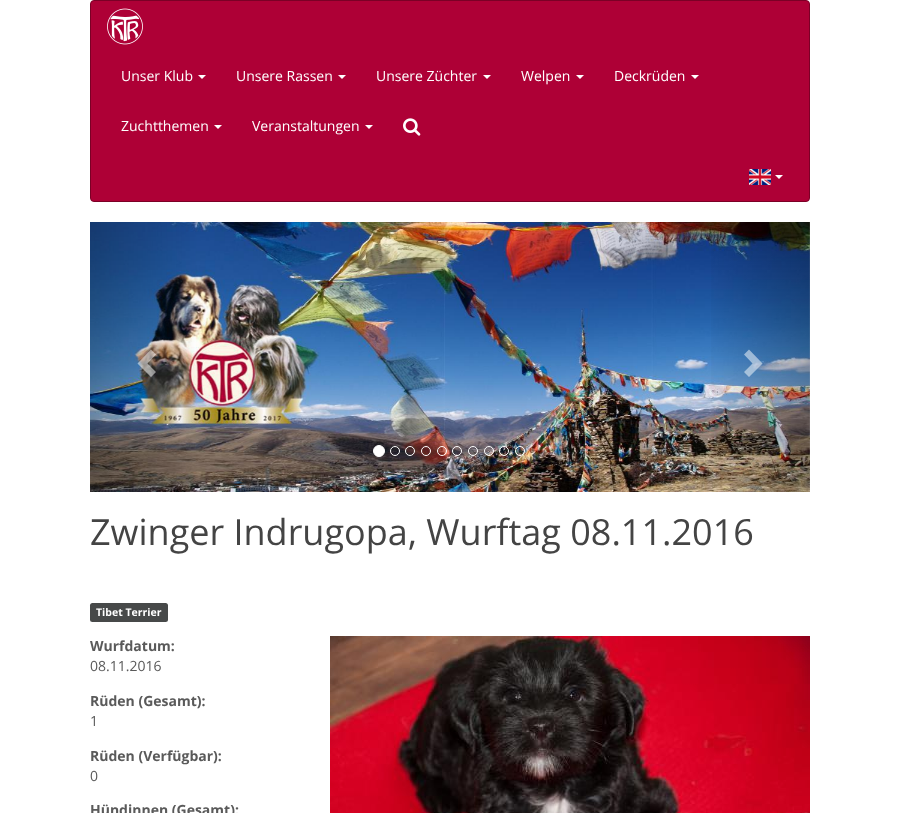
<svg xmlns="http://www.w3.org/2000/svg" width="899" height="813" viewBox="0 0 899 813">
  <defs>
    <linearGradient id="g1" gradientUnits="userSpaceOnUse" x1="702" y1="357" x2="810" y2="357"><stop offset="0" stop-color="#000000" stop-opacity="0"/><stop offset="1" stop-color="#000000" stop-opacity="0.25"/></linearGradient>
  </defs>
  <rect width="100%" height="100%" fill="#ffffff"/>
  <rect x="90.5" y="0.5" width="719" height="201" rx="3.5" fill="#ae0036" stroke="#7b0026"/>
  <image x="107" y="8" width="36" height="37" href="img1.png"/>
  <text x="121" y="81" font-family="Open Sans" font-size="14" fill="#ffffff">Unser Klub</text>
  <path d="M198 75H206L202 79Z" fill="#ffffff"/>
  <text x="236" y="81" font-family="Open Sans" font-size="14" fill="#ffffff">Unsere Rassen</text>
  <path d="M338 75H346L342 79Z" fill="#ffffff"/>
  <text x="376" y="81" font-family="Open Sans" font-size="14" fill="#ffffff">Unsere Züchter</text>
  <path d="M483 75H491L487 79Z" fill="#ffffff"/>
  <text x="521" y="81" font-family="Open Sans" font-size="14" fill="#ffffff">Welpen</text>
  <path d="M576 75H584L580 79Z" fill="#ffffff"/>
  <text x="614" y="81" font-family="Open Sans" font-size="14" fill="#ffffff">Deckrüden</text>
  <path d="M691 75H699L695 79Z" fill="#ffffff"/>
  <text x="121" y="131" font-family="Open Sans" font-size="14" fill="#ffffff">Zuchtthemen</text>
  <path d="M214 125H222L218 129Z" fill="#ffffff"/>
  <text x="252" y="131" font-family="Open Sans" font-size="14" fill="#ffffff">Veranstaltungen</text>
  <path d="M365 125H373L369 129Z" fill="#ffffff"/>
  <image x="403" y="118" width="18" height="18" href="img2.png"/>
  <image x="749" y="169" width="22" height="16" href="img3.png"/>
  <path d="M775 175H783L779 179Z" fill="#ffffff"/>
  <image x="90" y="222" width="720" height="270" href="img4.png"/>
  <path d="M156 354.5L147.5 363.5L156 372L151 377L137.5 363.5L151 349.5Z" fill="#ffffff" fill-opacity="0.5"/>
  <rect x="711" y="222" width="99" height="270" fill="url(#g1)"/>
  <path d="M762.5 363.5L749 377L744 372L752.5 363.5L744 354.5L749 349.5Z" fill="#ffffff" fill-opacity="0.5"/>
  <circle cx="379" cy="451" r="5.5" fill="#ffffff" stroke="#ffffff"/>
  <circle cx="395" cy="451" r="4.5" fill="none" stroke="#ffffff"/>
  <circle cx="410" cy="451" r="4.5" fill="none" stroke="#ffffff"/>
  <circle cx="426" cy="451" r="4.5" fill="none" stroke="#ffffff"/>
  <circle cx="442" cy="451" r="4.5" fill="none" stroke="#ffffff"/>
  <circle cx="457" cy="451" r="4.5" fill="none" stroke="#ffffff"/>
  <circle cx="473" cy="451" r="4.5" fill="none" stroke="#ffffff"/>
  <circle cx="489" cy="451" r="4.5" fill="none" stroke="#ffffff"/>
  <circle cx="504" cy="451" r="4.5" fill="none" stroke="#ffffff"/>
  <circle cx="520" cy="451" r="4.5" fill="none" stroke="#ffffff"/>
  <text x="90" y="545" font-family="Open Sans" font-size="36" fill="#444444">Zwinger Indrugopa, Wurftag 08.11.2016</text>
  <rect x="90" y="603" width="78" height="19" rx="2.5" fill="#474949"/>
  <text x="96" y="616" font-family="Open Sans" font-size="10.5" font-weight="bold" fill="#ffffff">Tibet Terrier</text>
  <text x="90" y="651" font-family="Open Sans" font-size="14" font-weight="bold" fill="#5a5a5a">Wurfdatum:</text>
  <text x="90" y="671" font-family="Open Sans" font-size="14" fill="#5a5a5a">08.11.2016</text>
  <image x="330" y="636" width="480" height="177" href="img5.png"/>
  <text x="90" y="706" font-family="Open Sans" font-size="14" font-weight="bold" fill="#5a5a5a">Rüden (Gesamt):</text>
  <text x="90" y="726" font-family="Open Sans" font-size="14" fill="#5a5a5a">1</text>
  <text x="90" y="761" font-family="Open Sans" font-size="14" font-weight="bold" fill="#5a5a5a">Rüden (Verfügbar):</text>
  <text x="90" y="781" font-family="Open Sans" font-size="14" fill="#5a5a5a">0</text>
  <text x="90" y="815" font-family="Open Sans" font-size="14" font-weight="bold" fill="#5a5a5a">Hündinnen (Gesamt):</text>
</svg>
